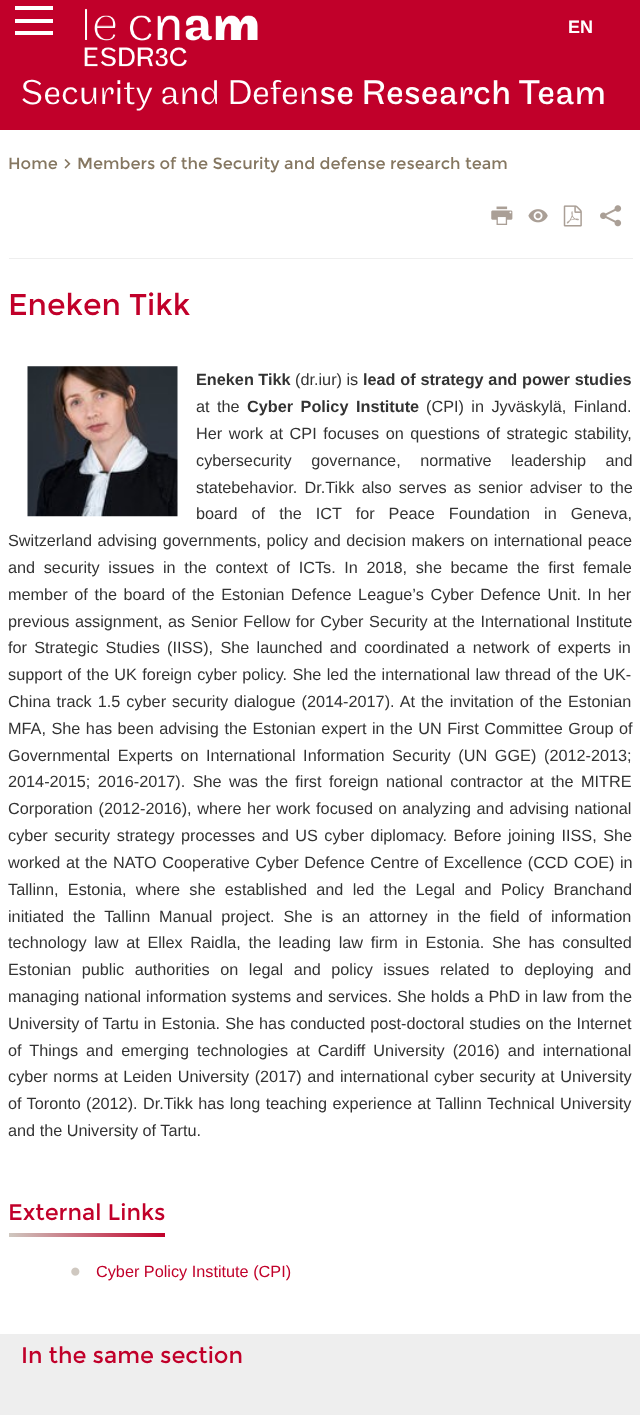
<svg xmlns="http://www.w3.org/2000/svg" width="640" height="1415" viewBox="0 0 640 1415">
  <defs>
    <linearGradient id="g1" gradientUnits="userSpaceOnUse" x1="9" y1="1234" x2="165" y2="1234"><stop offset="0" stop-color="#cfc8c0"/><stop offset="1" stop-color="#c1002a"/></linearGradient>
  </defs>
  <rect width="100%" height="100%" fill="#c1002a"/>
  <rect x="15" y="19" width="38" height="4" fill="#ffffff"/>
  <rect x="15" y="6" width="38" height="4" fill="#ffffff"/>
  <rect x="15" y="31" width="38" height="4" fill="#ffffff"/>
  <text x="568" y="33" font-family="Liberation Sans" font-size="18" font-weight="bold" fill="#ffffff">EN</text>
  <image x="84" y="8" width="174" height="59" href="img1.png"/>
  <text x="20" y="104" font-family="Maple" font-size="35.75" font-weight="300" fill="#ffffff">Security and Defen</text>
  <text x="319" y="104" font-family="Maple" font-size="35.75" fill="#ffffff">se Research Team</text>
  <rect x="0" y="130" width="640" height="1204" fill="#ffffff"/>
  <rect x="9" y="258" width="624" height="1" fill="#eeeeee"/>
  <text x="8" y="169" font-family="Montserrat" font-size="16.25" fill="#857761">Home</text>
  <image x="64" y="159" width="7" height="10" href="img2.png"/>
  <text x="77" y="169" font-family="Montserrat" font-size="16.25" fill="#857761">Members of the Security and defense research team</text>
  <image x="491" y="206" width="22" height="19" href="img3.png"/>
  <image x="528" y="209" width="20" height="14" href="img4.png"/>
  <image x="563" y="205" width="19" height="22" href="img5.png"/>
  <image x="600" y="205" width="22" height="22" href="img6.png"/>
  <text x="8" y="315" font-family="Montserrat" font-size="30" fill="#c1002a">Eneken Tikk</text>
  <image x="27" y="366" width="151" height="151" href="img7.png"/>
  <text x="196" y="385" font-family="Liberation Sans" font-size="16.25" font-weight="bold" fill="#333333">Eneken Tikk</text>
  <text x="295" y="385" font-family="Liberation Sans" font-size="16.25" fill="#333333">(dr.iur) is</text>
  <text x="363" y="385" word-spacing="0.25" font-family="Liberation Sans" font-size="16.25" font-weight="bold" fill="#333333">lead of strategy and power studies</text>
  <text x="196" y="412" word-spacing="3" font-family="Liberation Sans" font-size="16.25" fill="#333333">at the</text>
  <text x="247" y="412" word-spacing="3" font-family="Liberation Sans" font-size="16.25" font-weight="bold" fill="#333333">Cyber Policy Institute</text>
  <text x="426" y="412" word-spacing="2.9" font-family="Liberation Sans" font-size="16.25" fill="#333333">(CPI) in Jyväskylä, Finland.</text>
  <text x="196" y="439" word-spacing="2" font-family="Liberation Sans" font-size="16.25" fill="#333333">Her work at CPI focuses on questions of strategic stability,</text>
  <text x="196" y="466" word-spacing="15" font-family="Liberation Sans" font-size="16.25" fill="#333333">cybersecurity governance, normative leadership and</text>
  <text x="196" y="493" word-spacing="2.75" font-family="Liberation Sans" font-size="16.25" fill="#333333">statebehavior. Dr.Tikk also serves as senior adviser to the</text>
  <text x="196" y="519" word-spacing="9.5" font-family="Liberation Sans" font-size="16.25" fill="#333333">board of the ICT for Peace Foundation in Geneva,</text>
  <text x="8" y="546" word-spacing="1" font-family="Liberation Sans" font-size="16.25" fill="#333333">Switzerland advising governments, policy and decision makers on international peace</text>
  <text x="8" y="573" word-spacing="4.1" font-family="Liberation Sans" font-size="16.25" fill="#333333">and security issues in the context of ICTs. In 2018, she became the first female</text>
  <text x="8" y="600" word-spacing="2.1" font-family="Liberation Sans" font-size="16.25" fill="#333333">member of the board of the Estonian Defence League’s Cyber Defence Unit. In her</text>
  <text x="8" y="627" word-spacing="1" font-family="Liberation Sans" font-size="16.25" fill="#333333">previous assignment, as Senior Fellow for Cyber Security at the International Institute</text>
  <text x="8" y="653" word-spacing="2.75" font-family="Liberation Sans" font-size="16.25" fill="#333333">for Strategic Studies (IISS), She launched and coordinated a network of experts in</text>
  <text x="8" y="680" word-spacing="0.8" font-family="Liberation Sans" font-size="16.25" fill="#333333">support of the UK foreign cyber policy. She led the international law thread of the UK-</text>
  <text x="8" y="707" word-spacing="1.5" font-family="Liberation Sans" font-size="16.25" fill="#333333">China track 1.5 cyber security dialogue (2014-2017). At the invitation of the Estonian</text>
  <text x="8" y="734" word-spacing="1" font-family="Liberation Sans" font-size="16.25" fill="#333333">MFA, She has been advising the Estonian expert in the UN First Committee Group of</text>
  <text x="8" y="761" word-spacing="3.1" font-family="Liberation Sans" font-size="16.25" fill="#333333">Governmental Experts on International Information Security (UN GGE) (2012-2013;</text>
  <text x="8" y="787" word-spacing="2.9" font-family="Liberation Sans" font-size="16.25" fill="#333333">2014-2015; 2016-2017). She was the first foreign national contractor at the MITRE</text>
  <text x="8" y="814" word-spacing="1.1" font-family="Liberation Sans" font-size="16.25" fill="#333333">Corporation (2012-2016), where her work focused on analyzing and advising national</text>
  <text x="8" y="841" word-spacing="2" font-family="Liberation Sans" font-size="16.25" fill="#333333">cyber security strategy processes and US cyber diplomacy. Before joining IISS, She</text>
  <text x="8" y="868" word-spacing="1" font-family="Liberation Sans" font-size="16.25" fill="#333333">worked at the NATO Cooperative Cyber Defence Centre of Excellence (CCD COE) in</text>
  <text x="8" y="895" word-spacing="4.75" font-family="Liberation Sans" font-size="16.25" fill="#333333">Tallinn, Estonia, where she established and led the Legal and Policy Branchand</text>
  <text x="8" y="922" word-spacing="4.4" font-family="Liberation Sans" font-size="16.25" fill="#333333">initiated the Tallinn Manual project. She is an attorney in the field of information</text>
  <text x="8" y="948" word-spacing="3.1" font-family="Liberation Sans" font-size="16.25" fill="#333333">technology law at Ellex Raidla, the leading law firm in Estonia. She has consulted</text>
  <text x="8" y="975" word-spacing="6" font-family="Liberation Sans" font-size="16.25" fill="#333333">Estonian public authorities on legal and policy issues related to deploying and</text>
  <text x="8" y="1002" word-spacing="0.4" font-family="Liberation Sans" font-size="16.25" fill="#333333">managing national information systems and services. She holds a PhD in law from the</text>
  <text x="8" y="1029" word-spacing="0.5" font-family="Liberation Sans" font-size="16.25" fill="#333333">University of Tartu in Estonia. She has conducted post-doctoral studies on the Internet</text>
  <text x="8" y="1056" word-spacing="3.5" font-family="Liberation Sans" font-size="16.25" fill="#333333">of Things and emerging technologies at Cardiff University (2016) and international</text>
  <text x="8" y="1082" word-spacing="1.1" font-family="Liberation Sans" font-size="16.25" fill="#333333">cyber norms at Leiden University (2017) and international cyber security at University</text>
  <text x="8" y="1109" word-spacing="0.8" font-family="Liberation Sans" font-size="16.25" fill="#333333">of Toronto (2012). Dr.Tikk has long teaching experience at Tallinn Technical University</text>
  <text x="8" y="1136" font-family="Liberation Sans" font-size="16.25" fill="#333333">and the University of Tartu.</text>
  <text x="8" y="1220" font-family="Montserrat" font-size="22.5" fill="#c1002a">External Links</text>
  <rect x="9" y="1233" width="156" height="4" fill="url(#g1)"/>
  <image x="71" y="1267" width="9" height="9" href="img8.png"/>
  <text x="96" y="1277" font-family="Liberation Sans" font-size="16.25" fill="#c1002a">Cyber Policy Institute (CPI)</text>
  <rect x="0" y="1334" width="640" height="81" fill="#eeeeee"/>
  <text x="21" y="1363" font-family="Montserrat" font-size="22.5" fill="#c1002a">In the same section</text>
</svg>
